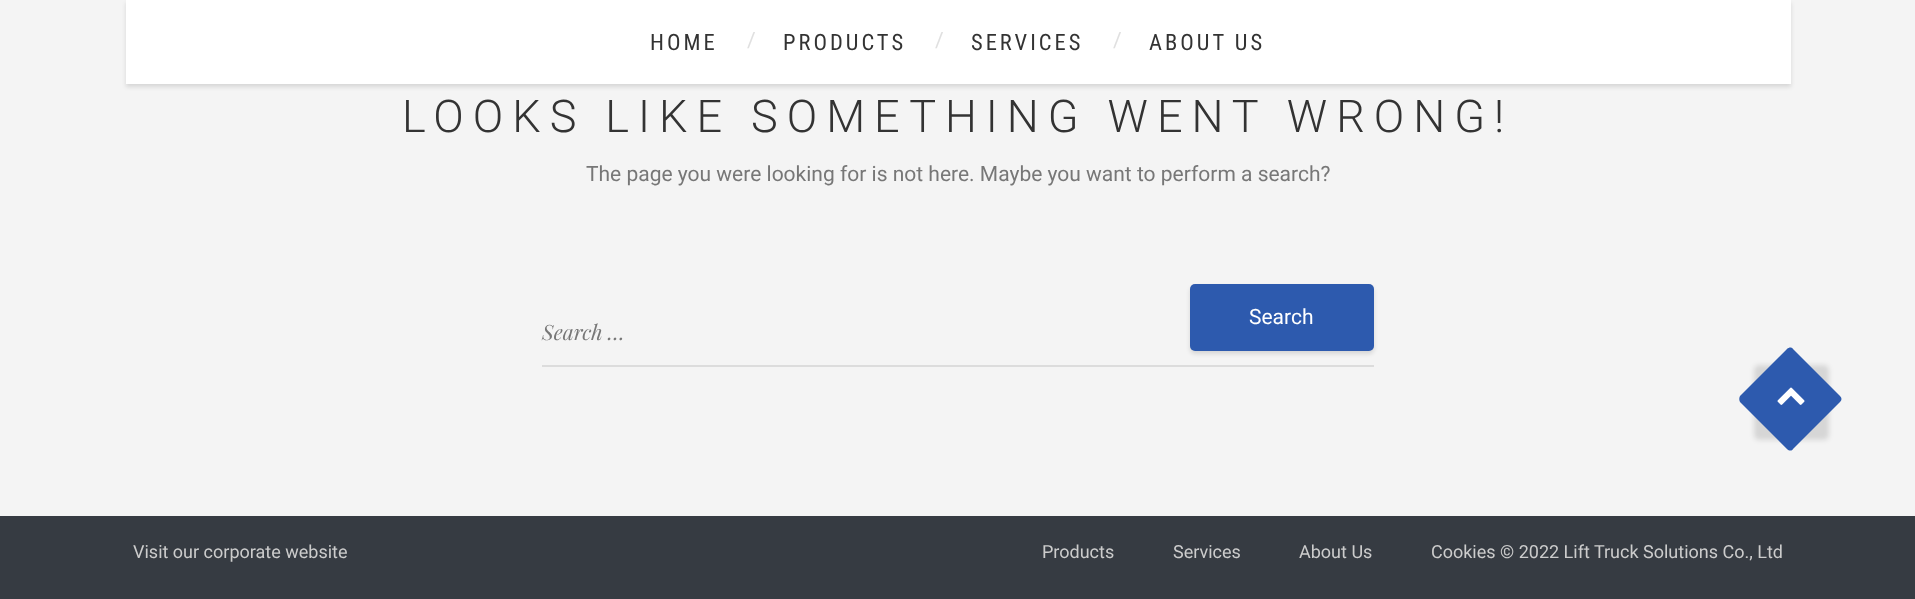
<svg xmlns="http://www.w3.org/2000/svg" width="1915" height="599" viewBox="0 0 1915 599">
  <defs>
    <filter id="blur1" x="-50%" y="-200%" width="200%" height="500%"><feGaussianBlur stdDeviation="2"/></filter>
    <filter id="blur2" x="-50%" y="-200%" width="200%" height="500%"><feGaussianBlur stdDeviation="2.5"/></filter>
  </defs>
  <rect width="100%" height="100%" fill="#f4f4f4"/>
  <rect x="126" y="3" width="1665" height="84" fill="#000000" fill-opacity="0.12" filter="url(#blur1)"/>
  <rect x="126" y="0" width="1665" height="84" fill="#ffffff"/>
  <text x="650" y="50" font-family="Roboto Condensed" font-size="22.5" letter-spacing="3" fill="#333333">HOME</text>
  <text x="747" y="47" font-family="Roboto" font-size="21" fill="#e0e0e0">/</text>
  <text x="783" y="50" font-family="Roboto Condensed" font-size="22.5" letter-spacing="3" fill="#333333">PRODUCTS</text>
  <text x="935" y="47" font-family="Roboto" font-size="21" fill="#e0e0e0">/</text>
  <text x="971" y="50" font-family="Roboto Condensed" font-size="22.5" letter-spacing="3" fill="#333333">SERVICES</text>
  <text x="1113" y="47" font-family="Roboto" font-size="21" fill="#e0e0e0">/</text>
  <text x="1149" y="50" font-family="Roboto Condensed" font-size="22.5" letter-spacing="3" fill="#333333">ABOUT US</text>
  <text x="402" y="132" font-family="Roboto" font-size="45" font-weight="300" letter-spacing="9" fill="#333333">LOOKS LIKE SOMETHING WENT WRONG!</text>
  <text x="586" y="181" font-family="Roboto" font-size="21" fill="#777777">The page you were looking for is not here. Maybe you want to perform a search?</text>
  <rect x="1190" y="287" width="184" height="67" rx="5" fill="#000000" fill-opacity="0.12" filter="url(#blur1)"/>
  <rect x="1190" y="284" width="184" height="67" rx="5" fill="#2d5aae"/>
  <text x="1249" y="324" font-family="Roboto" font-size="21" fill="#ffffff">Search</text>
  <rect x="542" y="365" width="832" height="2" fill="#dcdcdc"/>
  <text x="542" y="340" font-family="Playfair Display" font-size="21" font-style="italic" fill="#777777">Search …</text>
  <rect x="0" y="516" width="1915" height="83" fill="#363b42"/>
  <rect x="1754" y="365" width="75" height="75" rx="5" fill="#000000" fill-opacity="0.12" filter="url(#blur2)"/>
  <path d="M1793 349L1840 396C1842 398 1842 400 1840 402L1793 449C1792 451 1789 451 1787 449L1740 402C1739 400 1739 398 1740 396L1787 349C1789 347 1792 347 1793 349Z" fill="#2d5aae"/>
  <image x="1777" y="387" width="28" height="18" href="img1.png"/>
  <text x="133" y="558" font-family="Roboto" font-size="18" fill="#cccccc">Visit our corporate website</text>
  <text x="1042" y="558" font-family="Roboto" font-size="18" fill="#cccccc">Products</text>
  <text x="1173" y="558" font-family="Roboto" font-size="18" fill="#cccccc">Services</text>
  <text x="1299" y="558" font-family="Roboto" font-size="18" fill="#cccccc">About Us</text>
  <text x="1431" y="558" font-family="Roboto" font-size="18" fill="#cccccc">Cookies © 2022 Lift Truck Solutions Co., Ltd</text>
</svg>
